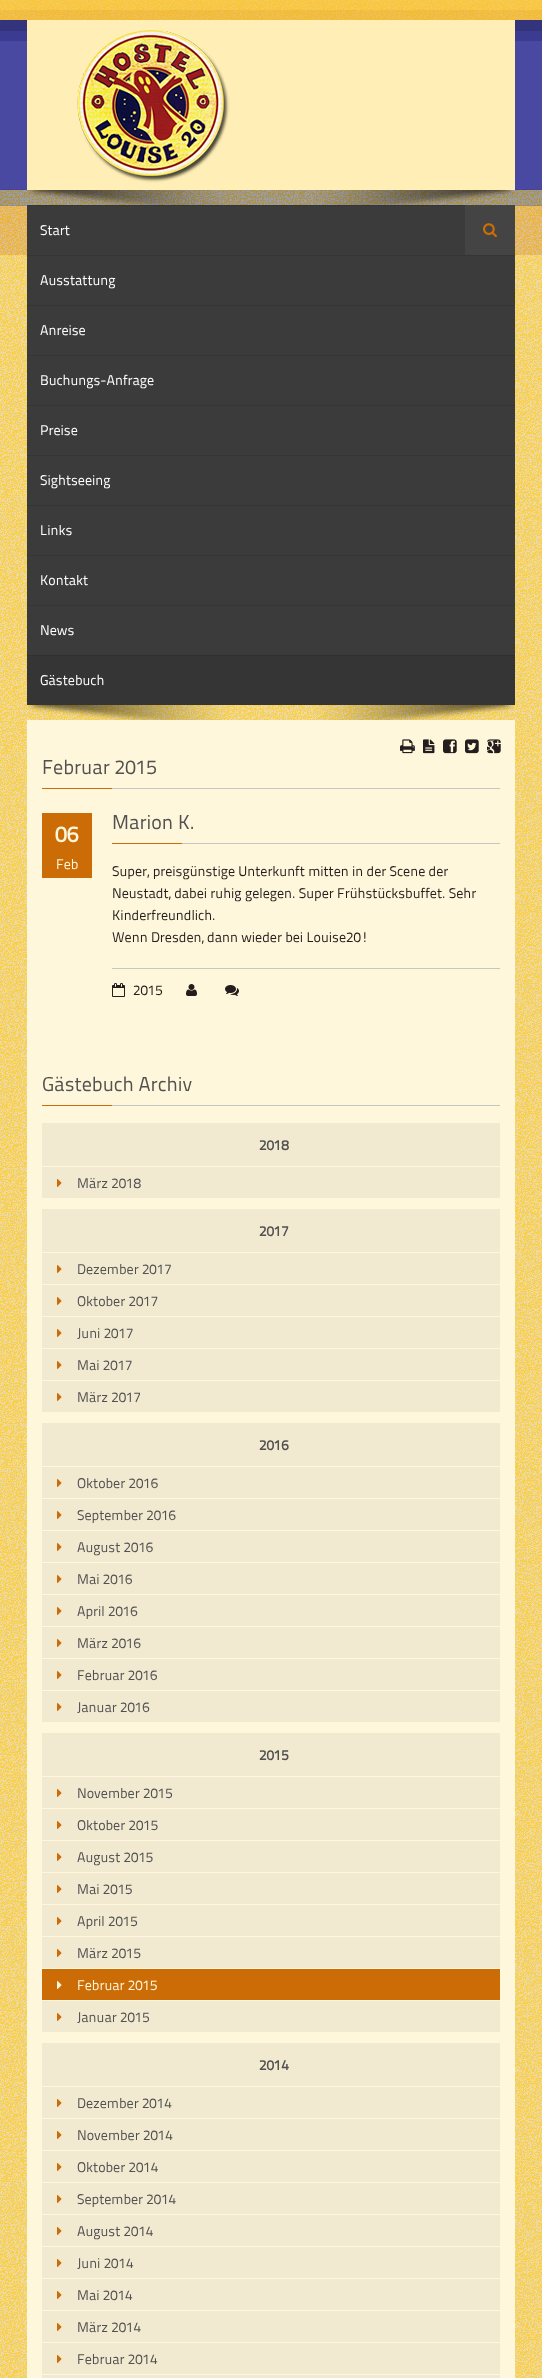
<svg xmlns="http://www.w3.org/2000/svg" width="542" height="2378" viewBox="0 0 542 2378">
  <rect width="100%" height="100%" fill="#ffffff"/>
  <image x="0" y="0" width="542" height="2378" href="img1.png"/>
  <rect x="27" y="20" width="488" height="170" fill="#ffefb6"/>
  <image x="77" y="30" width="153" height="153" href="img2.png"/>
  <image x="28" y="190" width="486" height="15" href="img3.png"/>
  <rect x="27" y="206" width="488" height="449" fill="#3b3b3b"/>
  <rect x="27" y="205" width="438" height="1" fill="#353535"/>
  <text x="40" y="235" font-family="'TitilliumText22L'" font-size="14" fill="#ffffff">Start</text>
  <rect x="27" y="255" width="488" height="1" fill="#353535"/>
  <text x="40" y="285" font-family="'TitilliumText22L'" font-size="14" fill="#ffffff">Ausstattung</text>
  <rect x="27" y="305" width="488" height="1" fill="#353535"/>
  <text x="40" y="335" font-family="'TitilliumText22L'" font-size="14" fill="#ffffff">Anreise</text>
  <rect x="27" y="355" width="488" height="1" fill="#353535"/>
  <text x="40" y="385" font-family="'TitilliumText22L'" font-size="14" fill="#ffffff">Buchungs-Anfrage</text>
  <rect x="27" y="405" width="488" height="1" fill="#353535"/>
  <text x="40" y="435" font-family="'TitilliumText22L'" font-size="14" fill="#ffffff">Preise</text>
  <rect x="27" y="455" width="488" height="1" fill="#353535"/>
  <text x="40" y="485" font-family="'TitilliumText22L'" font-size="14" fill="#ffffff">Sightseeing</text>
  <rect x="27" y="505" width="488" height="1" fill="#353535"/>
  <text x="40" y="535" font-family="'TitilliumText22L'" font-size="14" fill="#ffffff">Links</text>
  <rect x="27" y="555" width="488" height="1" fill="#353535"/>
  <text x="40" y="585" font-family="'TitilliumText22L'" font-size="14" fill="#ffffff">Kontakt</text>
  <rect x="27" y="605" width="488" height="1" fill="#353535"/>
  <text x="40" y="635" font-family="'TitilliumText22L'" font-size="14" fill="#ffffff">News</text>
  <rect x="27" y="656" width="488" height="49" fill="#353535"/>
  <rect x="27" y="655" width="488" height="1" fill="#303030"/>
  <text x="40" y="685" font-family="'TitilliumText22L'" font-size="14" fill="#ffffff">Gästebuch</text>
  <rect x="465" y="205" width="50" height="50" fill="#444444"/>
  <image x="483" y="223" width="14" height="15" href="img4.png"/>
  <image x="28" y="705" width="486" height="15" href="img5.png"/>
  <rect x="27" y="720" width="488" height="1658" fill="#fff7db"/>
  <image x="400" y="739" width="15" height="15" href="img6.png"/>
  <image x="423" y="739" width="12" height="15" href="img7.png"/>
  <image x="443" y="739" width="14" height="15" href="img8.png"/>
  <image x="465" y="739" width="14" height="15" href="img9.png"/>
  <image x="487" y="739" width="14" height="15" href="img10.png"/>
  <rect x="112" y="788" width="388" height="1" fill="#c4c7c1"/>
  <text x="42" y="774" font-family="'TitilliumText22L'" font-size="20" fill="#515151">Februar 2015</text>
  <rect x="42" y="788" width="70" height="1" fill="#cc6c06"/>
  <rect x="182" y="843" width="318" height="1" fill="#c4c7c1"/>
  <text x="112" y="829" font-family="'TitilliumText22L'" font-size="20" fill="#515151">Marion K.</text>
  <rect x="112" y="843" width="70" height="1" fill="#cc6c06"/>
  <rect x="42" y="813" width="50" height="65" fill="#cc6c06"/>
  <text x="55" y="842" font-family="'TitilliumText22L'" font-size="22" font-weight="bold" fill="#fff7db">06</text>
  <text x="56" y="869" font-family="'TitilliumText22L'" font-size="14" fill="#fff7db">Feb</text>
  <text x="112" y="876" font-family="'TitilliumText22L'" font-size="14" fill="#231d1d">Super, preisgünstige Unterkunft mitten in der Scene der</text>
  <text x="112" y="898" font-family="'TitilliumText22L'" font-size="14" fill="#231d1d">Neustadt, dabei ruhig gelegen. Super Frühstücksbuffet. Sehr</text>
  <text x="112" y="920" font-family="'TitilliumText22L'" font-size="14" fill="#231d1d">Kinderfreundlich.</text>
  <text x="112" y="942" font-family="'TitilliumText22L'" font-size="14" fill="#231d1d">Wenn Dresden, dann wieder bei Louise20!</text>
  <rect x="112" y="968" width="388" height="1" fill="#c4c7c1"/>
  <image x="112" y="983" width="13" height="14" href="img11.png"/>
  <text x="133" y="995" font-family="'TitilliumText22L'" font-size="14" fill="#231d1d">2015</text>
  <image x="186" y="984" width="11" height="12" href="img12.png"/>
  <image x="225" y="985" width="14" height="11" href="img13.png"/>
  <rect x="112" y="1105" width="388" height="1" fill="#c4c7c1"/>
  <text x="42" y="1091" font-family="'TitilliumText22L'" font-size="20" fill="#515151">Gästebuch Archiv</text>
  <rect x="42" y="1105" width="70" height="1" fill="#cc6c06"/>
  <rect x="42" y="1123" width="458" height="43" fill="#f1ead1"/>
  <text x="259" y="1150" font-family="'TitilliumText22L'" font-size="14" font-weight="bold" fill="#515151">2018</text>
  <rect x="42" y="1167" width="458" height="31" fill="#f1ead1"/>
  <image x="57" y="1179" width="5" height="8" href="img14.png"/>
  <text x="77" y="1188" font-family="'TitilliumText22L'" font-size="14" fill="#515151">März 2018</text>
  <rect x="42" y="1209" width="458" height="43" fill="#f1ead1"/>
  <text x="259" y="1236" font-family="'TitilliumText22L'" font-size="14" font-weight="bold" fill="#515151">2017</text>
  <rect x="42" y="1253" width="458" height="31" fill="#f1ead1"/>
  <image x="57" y="1265" width="5" height="8" href="img14.png"/>
  <text x="77" y="1274" font-family="'TitilliumText22L'" font-size="14" fill="#515151">Dezember 2017</text>
  <rect x="42" y="1285" width="458" height="31" fill="#f1ead1"/>
  <image x="57" y="1297" width="5" height="8" href="img14.png"/>
  <text x="77" y="1306" font-family="'TitilliumText22L'" font-size="14" fill="#515151">Oktober 2017</text>
  <rect x="42" y="1317" width="458" height="31" fill="#f1ead1"/>
  <image x="57" y="1329" width="5" height="8" href="img14.png"/>
  <text x="77" y="1338" font-family="'TitilliumText22L'" font-size="14" fill="#515151">Juni 2017</text>
  <rect x="42" y="1349" width="458" height="31" fill="#f1ead1"/>
  <image x="57" y="1361" width="5" height="8" href="img14.png"/>
  <text x="77" y="1370" font-family="'TitilliumText22L'" font-size="14" fill="#515151">Mai 2017</text>
  <rect x="42" y="1381" width="458" height="31" fill="#f1ead1"/>
  <image x="57" y="1393" width="5" height="8" href="img14.png"/>
  <text x="77" y="1402" font-family="'TitilliumText22L'" font-size="14" fill="#515151">März 2017</text>
  <rect x="42" y="1423" width="458" height="43" fill="#f1ead1"/>
  <text x="259" y="1450" font-family="'TitilliumText22L'" font-size="14" font-weight="bold" fill="#515151">2016</text>
  <rect x="42" y="1467" width="458" height="31" fill="#f1ead1"/>
  <image x="57" y="1479" width="5" height="8" href="img14.png"/>
  <text x="77" y="1488" font-family="'TitilliumText22L'" font-size="14" fill="#515151">Oktober 2016</text>
  <rect x="42" y="1499" width="458" height="31" fill="#f1ead1"/>
  <image x="57" y="1511" width="5" height="8" href="img14.png"/>
  <text x="77" y="1520" font-family="'TitilliumText22L'" font-size="14" fill="#515151">September 2016</text>
  <rect x="42" y="1531" width="458" height="31" fill="#f1ead1"/>
  <image x="57" y="1543" width="5" height="8" href="img14.png"/>
  <text x="77" y="1552" font-family="'TitilliumText22L'" font-size="14" fill="#515151">August 2016</text>
  <rect x="42" y="1563" width="458" height="31" fill="#f1ead1"/>
  <image x="57" y="1575" width="5" height="8" href="img14.png"/>
  <text x="77" y="1584" font-family="'TitilliumText22L'" font-size="14" fill="#515151">Mai 2016</text>
  <rect x="42" y="1595" width="458" height="31" fill="#f1ead1"/>
  <image x="57" y="1607" width="5" height="8" href="img14.png"/>
  <text x="77" y="1616" font-family="'TitilliumText22L'" font-size="14" fill="#515151">April 2016</text>
  <rect x="42" y="1627" width="458" height="31" fill="#f1ead1"/>
  <image x="57" y="1639" width="5" height="8" href="img14.png"/>
  <text x="77" y="1648" font-family="'TitilliumText22L'" font-size="14" fill="#515151">März 2016</text>
  <rect x="42" y="1659" width="458" height="31" fill="#f1ead1"/>
  <image x="57" y="1671" width="5" height="8" href="img14.png"/>
  <text x="77" y="1680" font-family="'TitilliumText22L'" font-size="14" fill="#515151">Februar 2016</text>
  <rect x="42" y="1691" width="458" height="31" fill="#f1ead1"/>
  <image x="57" y="1703" width="5" height="8" href="img14.png"/>
  <text x="77" y="1712" font-family="'TitilliumText22L'" font-size="14" fill="#515151">Januar 2016</text>
  <rect x="42" y="1733" width="458" height="43" fill="#f1ead1"/>
  <text x="259" y="1760" font-family="'TitilliumText22L'" font-size="14" font-weight="bold" fill="#515151">2015</text>
  <rect x="42" y="1777" width="458" height="31" fill="#f1ead1"/>
  <image x="57" y="1789" width="5" height="8" href="img14.png"/>
  <text x="77" y="1798" font-family="'TitilliumText22L'" font-size="14" fill="#515151">November 2015</text>
  <rect x="42" y="1809" width="458" height="31" fill="#f1ead1"/>
  <image x="57" y="1821" width="5" height="8" href="img14.png"/>
  <text x="77" y="1830" font-family="'TitilliumText22L'" font-size="14" fill="#515151">Oktober 2015</text>
  <rect x="42" y="1841" width="458" height="31" fill="#f1ead1"/>
  <image x="57" y="1853" width="5" height="8" href="img14.png"/>
  <text x="77" y="1862" font-family="'TitilliumText22L'" font-size="14" fill="#515151">August 2015</text>
  <rect x="42" y="1873" width="458" height="31" fill="#f1ead1"/>
  <image x="57" y="1885" width="5" height="8" href="img14.png"/>
  <text x="77" y="1894" font-family="'TitilliumText22L'" font-size="14" fill="#515151">Mai 2015</text>
  <rect x="42" y="1905" width="458" height="31" fill="#f1ead1"/>
  <image x="57" y="1917" width="5" height="8" href="img14.png"/>
  <text x="77" y="1926" font-family="'TitilliumText22L'" font-size="14" fill="#515151">April 2015</text>
  <rect x="42" y="1937" width="458" height="31" fill="#f1ead1"/>
  <image x="57" y="1949" width="5" height="8" href="img14.png"/>
  <text x="77" y="1958" font-family="'TitilliumText22L'" font-size="14" fill="#515151">März 2015</text>
  <rect x="42" y="1969" width="458" height="31" fill="#cc6c06"/>
  <image x="57" y="1981" width="5" height="8" href="img15.png"/>
  <text x="77" y="1990" font-family="'TitilliumText22L'" font-size="14" fill="#fff7db">Februar 2015</text>
  <rect x="42" y="2001" width="458" height="31" fill="#f1ead1"/>
  <image x="57" y="2013" width="5" height="8" href="img14.png"/>
  <text x="77" y="2022" font-family="'TitilliumText22L'" font-size="14" fill="#515151">Januar 2015</text>
  <rect x="42" y="2043" width="458" height="43" fill="#f1ead1"/>
  <text x="259" y="2070" font-family="'TitilliumText22L'" font-size="14" font-weight="bold" fill="#515151">2014</text>
  <rect x="42" y="2087" width="458" height="31" fill="#f1ead1"/>
  <image x="57" y="2099" width="5" height="8" href="img14.png"/>
  <text x="77" y="2108" font-family="'TitilliumText22L'" font-size="14" fill="#515151">Dezember 2014</text>
  <rect x="42" y="2119" width="458" height="31" fill="#f1ead1"/>
  <image x="57" y="2131" width="5" height="8" href="img14.png"/>
  <text x="77" y="2140" font-family="'TitilliumText22L'" font-size="14" fill="#515151">November 2014</text>
  <rect x="42" y="2151" width="458" height="31" fill="#f1ead1"/>
  <image x="57" y="2163" width="5" height="8" href="img14.png"/>
  <text x="77" y="2172" font-family="'TitilliumText22L'" font-size="14" fill="#515151">Oktober 2014</text>
  <rect x="42" y="2183" width="458" height="31" fill="#f1ead1"/>
  <image x="57" y="2195" width="5" height="8" href="img14.png"/>
  <text x="77" y="2204" font-family="'TitilliumText22L'" font-size="14" fill="#515151">September 2014</text>
  <rect x="42" y="2215" width="458" height="31" fill="#f1ead1"/>
  <image x="57" y="2227" width="5" height="8" href="img14.png"/>
  <text x="77" y="2236" font-family="'TitilliumText22L'" font-size="14" fill="#515151">August 2014</text>
  <rect x="42" y="2247" width="458" height="31" fill="#f1ead1"/>
  <image x="57" y="2259" width="5" height="8" href="img14.png"/>
  <text x="77" y="2268" font-family="'TitilliumText22L'" font-size="14" fill="#515151">Juni 2014</text>
  <rect x="42" y="2279" width="458" height="31" fill="#f1ead1"/>
  <image x="57" y="2291" width="5" height="8" href="img14.png"/>
  <text x="77" y="2300" font-family="'TitilliumText22L'" font-size="14" fill="#515151">Mai 2014</text>
  <rect x="42" y="2311" width="458" height="31" fill="#f1ead1"/>
  <image x="57" y="2323" width="5" height="8" href="img14.png"/>
  <text x="77" y="2332" font-family="'TitilliumText22L'" font-size="14" fill="#515151">März 2014</text>
  <rect x="42" y="2343" width="458" height="31" fill="#f1ead1"/>
  <image x="57" y="2355" width="5" height="8" href="img14.png"/>
  <text x="77" y="2364" font-family="'TitilliumText22L'" font-size="14" fill="#515151">Februar 2014</text>
  <rect x="42" y="2375" width="458" height="3" fill="#f1ead1"/>
</svg>
